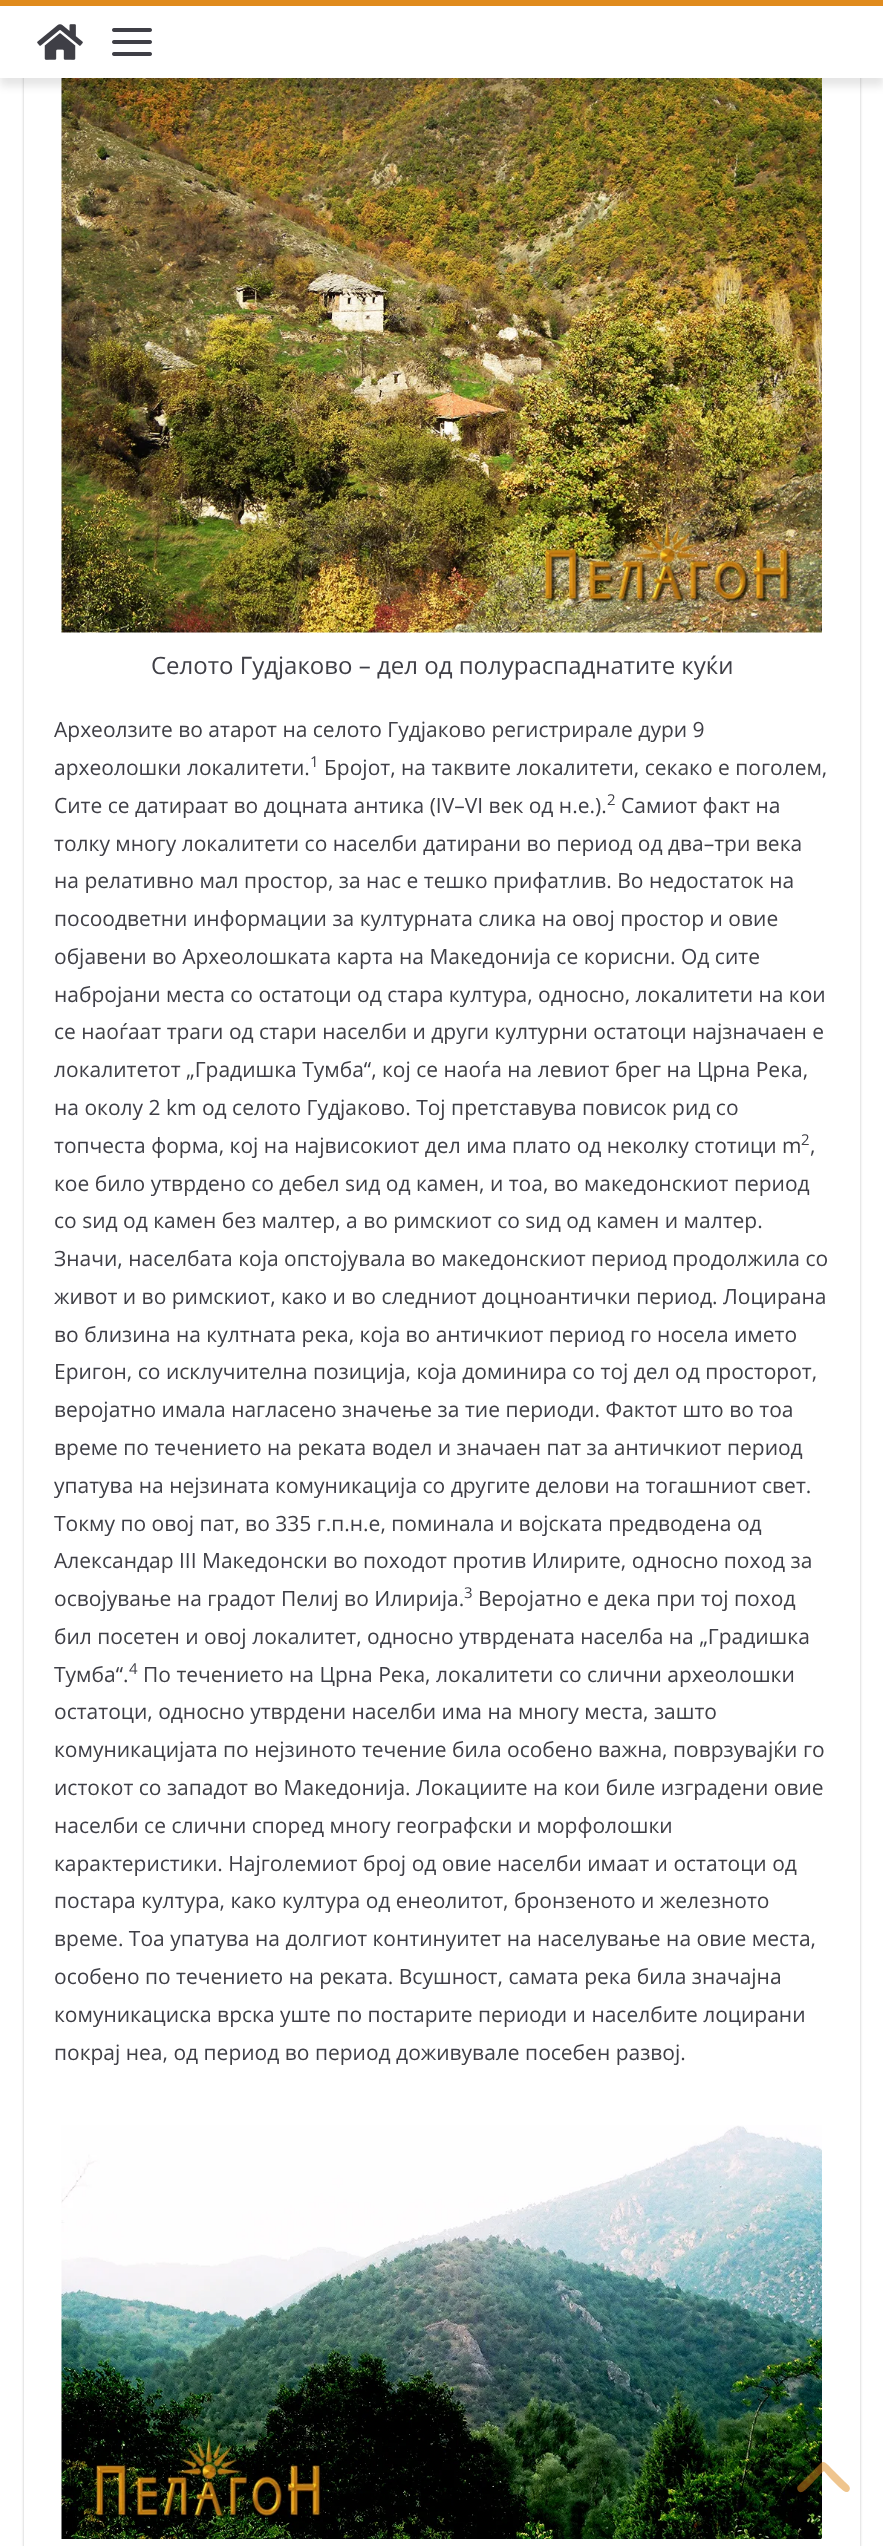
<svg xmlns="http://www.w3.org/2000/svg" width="883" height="2546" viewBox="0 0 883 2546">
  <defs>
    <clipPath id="clip1"><path d="M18 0H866V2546H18ZM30-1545H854C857.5-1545 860-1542.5 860-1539V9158C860 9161.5 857.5 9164 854 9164H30C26.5 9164 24 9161.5 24 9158V-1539C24-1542.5 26.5-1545 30-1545Z" clip-rule="evenodd"/></clipPath>
    <filter id="blur1" x="-50%" y="-200%" width="200%" height="500%"><feGaussianBlur stdDeviation="1.5"/></filter>
    <filter id="blur2" x="-50%" y="-200%" width="200%" height="500%"><feGaussianBlur stdDeviation="4.5"/></filter>
  </defs>
  <rect width="100%" height="100%" fill="#ffffff"/>
  <g clip-path="url(#clip1)">
    <rect x="24" y="-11" width="836" height="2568" rx="6" fill="#000000" fill-opacity="0.24" filter="url(#blur1)"/>
  </g>
  <image x="61" y="78" width="761" height="555" href="img3.png"/>
  <rect x="0" y="8" width="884" height="78" fill="#000000" fill-opacity="0.1" filter="url(#blur2)"/>
  <rect x="0" y="6" width="883" height="72" fill="#ffffff"/>
  <rect x="0" y="0" width="883" height="6" fill="#e08b1d"/>
  <image x="37" y="24" width="46" height="36" href="img1.png"/>
  <image x="112" y="28" width="40" height="28" href="img2.png"/>
  <text x="151" y="674" font-family="Open Sans" font-size="24" fill="#3f3f46">Селото Гудјаково – дел од полураспаднатите куќи</text>
  <text x="54" y="737" font-family="Open Sans" font-size="21" fill="#3f3f46">Археолзите во атарот на селото Гудјаково регистрирале дури 9</text>
  <text x="54" y="775" font-family="Open Sans" font-size="21" fill="#3f3f46">археолошки локалитети.</text>
  <text x="310" y="767" font-family="Open Sans" font-size="15" fill="#3f3f46">1</text>
  <text x="324" y="775" font-family="Open Sans" font-size="21" fill="#3f3f46">Бројот, на таквите локалитети, секако е поголем,</text>
  <text x="54" y="813" font-family="Open Sans" font-size="21" fill="#3f3f46">Сите се датираат во доцната антика (IV–VI век од н.е.).</text>
  <text x="607" y="805" font-family="Open Sans" font-size="15" fill="#3f3f46">2</text>
  <text x="621" y="813" font-family="Open Sans" font-size="21" fill="#3f3f46">Самиот факт на</text>
  <text x="54" y="851" font-family="Open Sans" font-size="21" fill="#3f3f46">толку многу локалитети со населби датирани во период од два–три века</text>
  <text x="54" y="888" font-family="Open Sans" font-size="21" fill="#3f3f46">на релативно мал простор, за нас е тешко прифатлив. Во недостаток на</text>
  <text x="54" y="926" font-family="Open Sans" font-size="21" fill="#3f3f46">посоодветни информации за културната слика на овој простор и овие</text>
  <text x="54" y="964" font-family="Open Sans" font-size="21" fill="#3f3f46">објавени во Археолошката карта на Македонија се корисни. Од сите</text>
  <text x="54" y="1002" font-family="Open Sans" font-size="21" fill="#3f3f46">набројани места со остатоци од стара култура, односно, локалитети на кои</text>
  <text x="54" y="1039" font-family="Open Sans" font-size="21" fill="#3f3f46">се наоѓаат траги од стари населби и други културни остатоци најзначаен е</text>
  <text x="54" y="1077" font-family="Open Sans" font-size="21" fill="#3f3f46">локалитетот „Градишка Тумба“, кој се наоѓа на левиот брег на Црна Река,</text>
  <text x="54" y="1115" font-family="Open Sans" font-size="21" fill="#3f3f46">на околу 2 km од селото Гудјаково. Тој претставува повисок рид со</text>
  <text x="54" y="1153" font-family="Open Sans" font-size="21" fill="#3f3f46">топчеста форма, кој на највисокиот дел има плато од неколку стотици m</text>
  <text x="801" y="1145" font-family="Open Sans" font-size="15" fill="#3f3f46">2</text>
  <text x="810" y="1153" font-family="Open Sans" font-size="21" fill="#3f3f46">,</text>
  <text x="54" y="1191" font-family="Open Sans" font-size="21" fill="#3f3f46">кое било утврдено со дебел ѕид од камен, и тоа, во македонскиот период</text>
  <text x="54" y="1228" font-family="Open Sans" font-size="21" fill="#3f3f46">со ѕид од камен без малтер, а во римскиот со ѕид од камен и малтер.</text>
  <text x="54" y="1266" font-family="Open Sans" font-size="21" fill="#3f3f46">Значи, населбата која опстојувала во македонскиот период продолжила со</text>
  <text x="54" y="1304" font-family="Open Sans" font-size="21" fill="#3f3f46">живот и во римскиот, како и во следниот доцноантички период. Лоцирана</text>
  <text x="54" y="1342" font-family="Open Sans" font-size="21" fill="#3f3f46">во близина на култната река, која во античкиот период го носела името</text>
  <text x="54" y="1379" font-family="Open Sans" font-size="21" fill="#3f3f46">Еригон, со исклучителна позиција, која доминира со тој дел од просторот,</text>
  <text x="54" y="1417" font-family="Open Sans" font-size="21" fill="#3f3f46">веројатно имала нагласено значење за тие периоди. Фактот што во тоа</text>
  <text x="54" y="1455" font-family="Open Sans" font-size="21" fill="#3f3f46">време по течението на реката водел и значаен пат за античкиот период</text>
  <text x="54" y="1493" font-family="Open Sans" font-size="21" fill="#3f3f46">упатува на нејзината комуникација со другите делови на тогашниот свет.</text>
  <text x="54" y="1531" font-family="Open Sans" font-size="21" fill="#3f3f46">Токму по овој пат, во 335 г.п.н.е, поминала и војската предводена од</text>
  <text x="54" y="1568" font-family="Open Sans" font-size="21" fill="#3f3f46">Александар III Македонски во походот против Илирите, односно поход за</text>
  <text x="54" y="1606" font-family="Open Sans" font-size="21" fill="#3f3f46">освојување на градот Пелиј во Илирија.</text>
  <text x="464" y="1598" font-family="Open Sans" font-size="15" fill="#3f3f46">3</text>
  <text x="478" y="1606" font-family="Open Sans" font-size="21" fill="#3f3f46">Веројатно е дека при тој поход</text>
  <text x="54" y="1644" font-family="Open Sans" font-size="21" fill="#3f3f46">бил посетен и овој локалитет, односно утврдената населба на „Градишка</text>
  <text x="54" y="1682" font-family="Open Sans" font-size="21" fill="#3f3f46">Тумба“.</text>
  <text x="129" y="1674" font-family="Open Sans" font-size="15" fill="#3f3f46">4</text>
  <text x="143" y="1682" font-family="Open Sans" font-size="21" fill="#3f3f46">По течението на Црна Река, локалитети со слични археолошки</text>
  <text x="54" y="1719" font-family="Open Sans" font-size="21" fill="#3f3f46">остатоци, односно утврдени населби има на многу места, зашто</text>
  <text x="54" y="1757" font-family="Open Sans" font-size="21" fill="#3f3f46">комуникацијата по нејзиното течение била особено важна, поврзувајќи го</text>
  <text x="54" y="1795" font-family="Open Sans" font-size="21" fill="#3f3f46">истокот со западот во Македонија. Локациите на кои биле изградени овие</text>
  <text x="54" y="1833" font-family="Open Sans" font-size="21" fill="#3f3f46">населби се слични според многу географски и морфолошки</text>
  <text x="54" y="1871" font-family="Open Sans" font-size="21" fill="#3f3f46">карактеристики. Најголемиот број од овие населби имаат и остатоци од</text>
  <text x="54" y="1908" font-family="Open Sans" font-size="21" fill="#3f3f46">постара култура, како култура од енеолитот, бронзеното и железното</text>
  <text x="54" y="1946" font-family="Open Sans" font-size="21" fill="#3f3f46">време. Тоа упатува на долгиот континуитет на населување на овие места,</text>
  <text x="54" y="1984" font-family="Open Sans" font-size="21" fill="#3f3f46">особено по течението на реката. Всушност, самата река била значајна</text>
  <text x="54" y="2022" font-family="Open Sans" font-size="21" fill="#3f3f46">комуникациска врска уште по постарите периоди и населбите лоцирани</text>
  <text x="54" y="2060" font-family="Open Sans" font-size="21" fill="#3f3f46">покрај неа, од период во период доживувале посебен развој.</text>
  <image x="61" y="2125" width="761" height="414" href="img4.png"/>
  <path d="M821 2463C824 2460 828 2465 830 2467L845 2482C847 2484 852 2487 849 2491C848 2492 847 2492 846 2492C843 2492 827 2475 824 2471C820 2474 805 2492 802 2492C798 2493 796 2488 798 2486Z" fill="#e08b1d" fill-opacity="0.5"/>
</svg>
